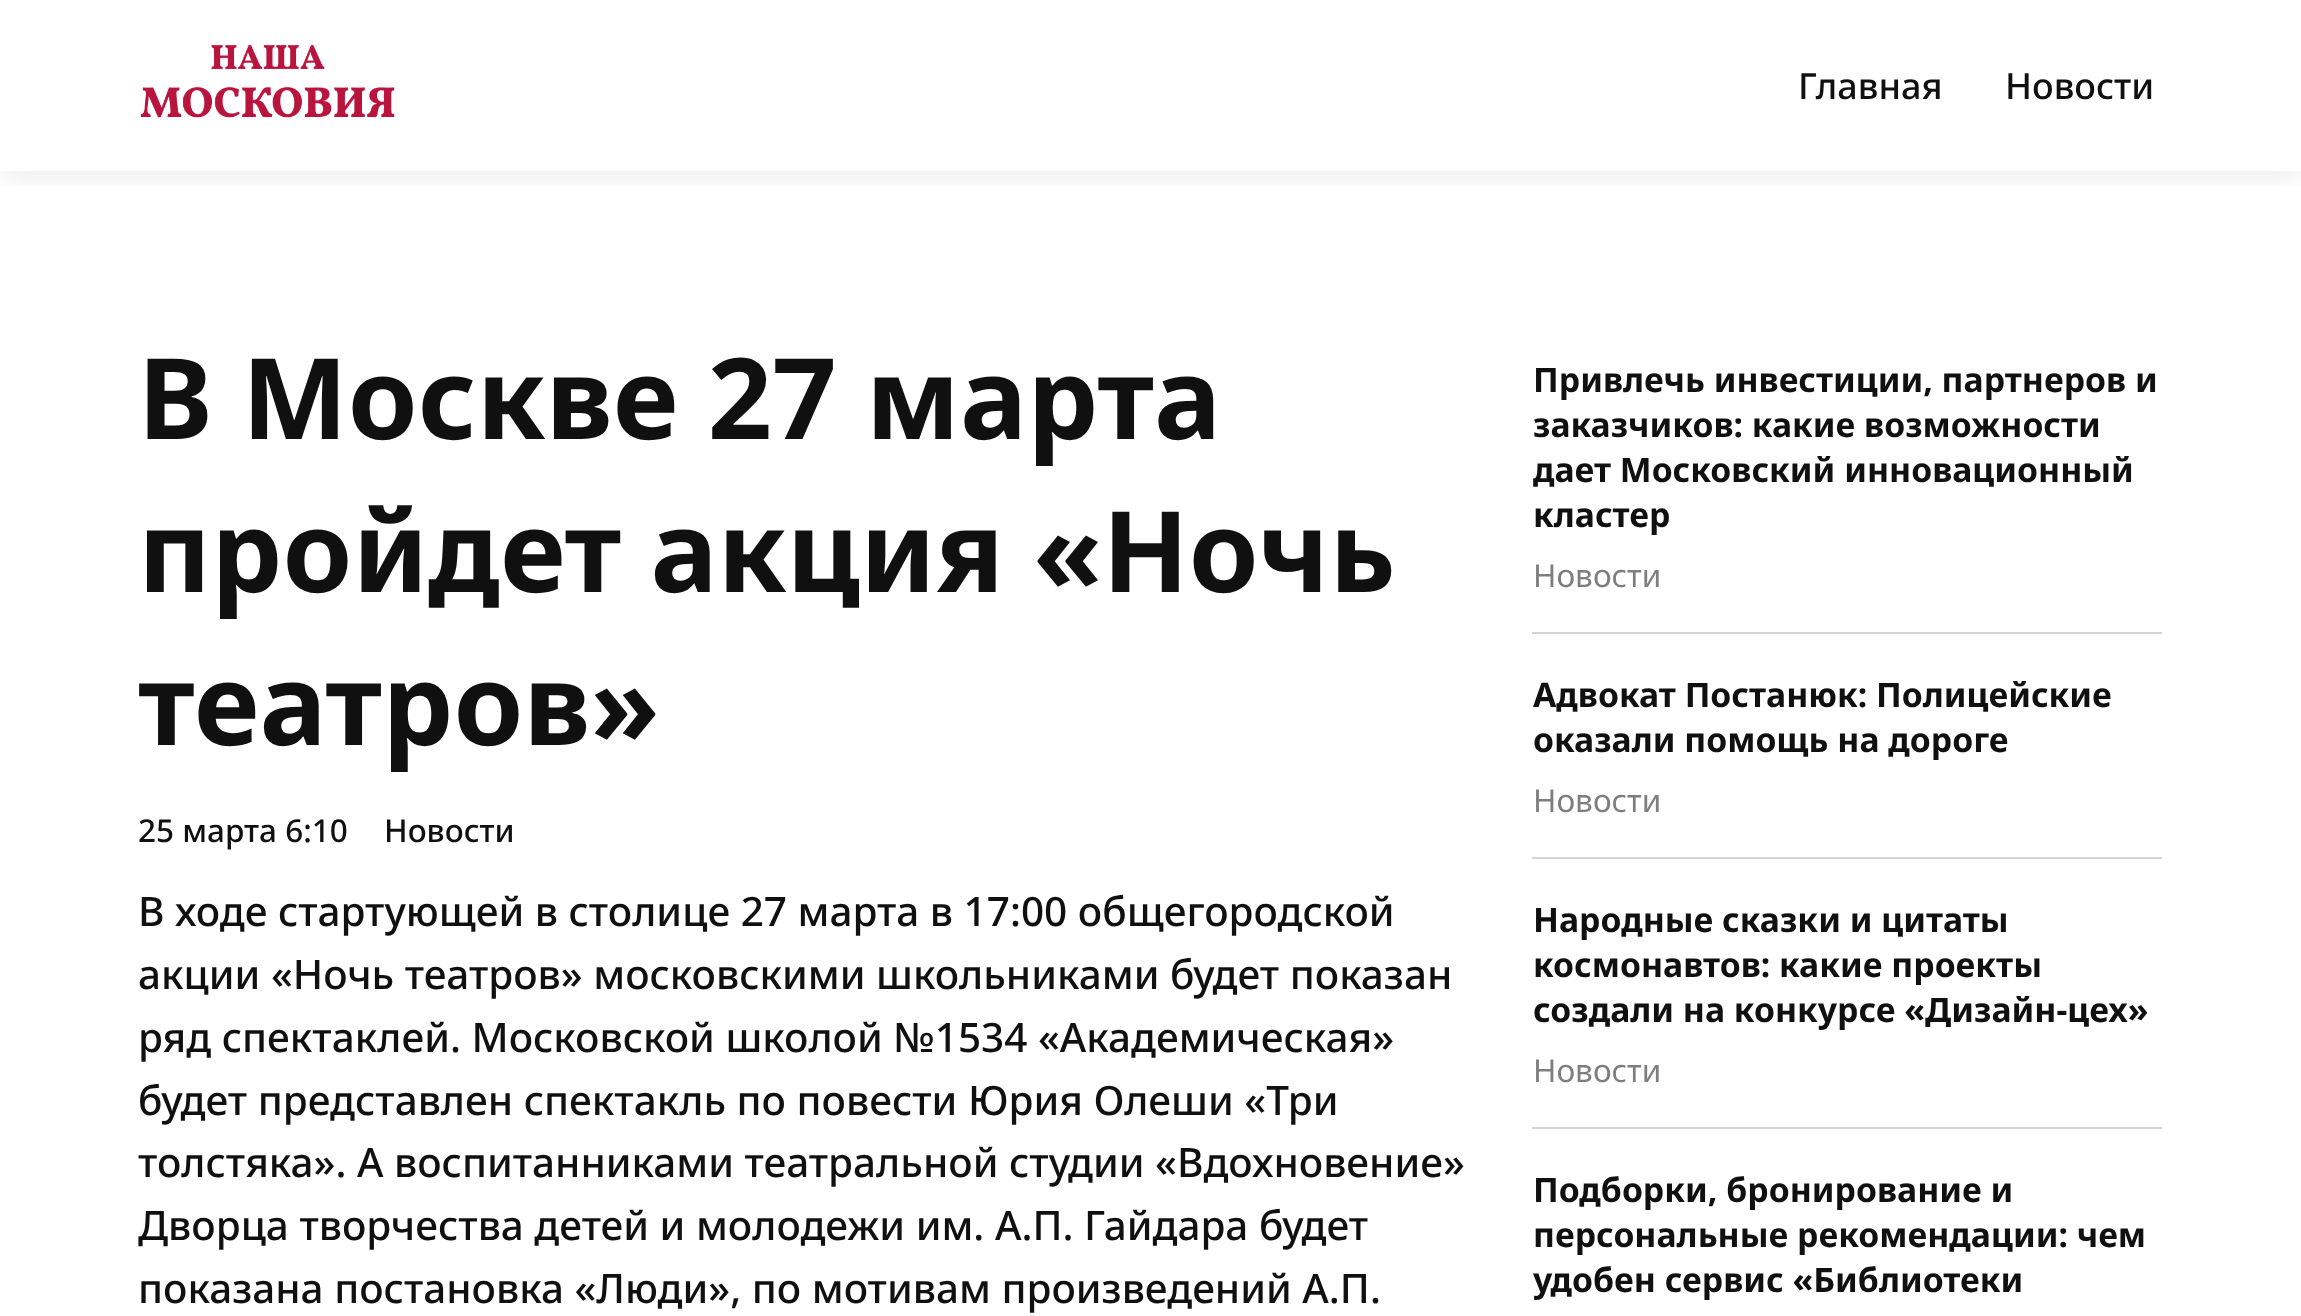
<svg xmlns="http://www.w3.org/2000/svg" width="2301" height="1316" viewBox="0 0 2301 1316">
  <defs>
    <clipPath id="clip1"><rect x="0" y="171" width="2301" height="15"/></clipPath>
    <filter id="blur1" x="-50%" y="-200%" width="200%" height="500%"><feGaussianBlur stdDeviation="18"/></filter>
  </defs>
  <rect width="100%" height="100%" fill="#ffffff"/>
  <g clip-path="url(#clip1)">
    <rect x="0" y="0" width="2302" height="171" fill="#000000" fill-opacity="0.1" filter="url(#blur1)"/>
  </g>
  <image x="140" y="44" width="255" height="74" href="img1.png"/>
  <text x="1798" y="99" font-family="Noto Sans" font-size="36" font-weight="500" fill="#111010">Главная</text>
  <text x="2005" y="99" font-family="Noto Sans" font-size="36" font-weight="500" fill="#111010">Новости</text>
  <text x="138" y="439" font-family="Noto Sans" font-size="112.5" font-weight="bold" fill="#111010">В Москве 27 марта</text>
  <text x="138" y="592" font-family="Noto Sans" font-size="112.5" font-weight="bold" fill="#111010">пройдет акция «Ночь</text>
  <text x="138" y="745" font-family="Noto Sans" font-size="112.5" font-weight="bold" fill="#111010">театров»</text>
  <text x="138" y="842" font-family="Noto Sans" font-size="31.5" font-weight="500" fill="#111010">25 марта 6:10</text>
  <text x="384" y="842" font-family="Noto Sans" font-size="31.5" font-weight="500" fill="#111010">Новости</text>
  <text x="138" y="926" font-family="Noto Sans" font-size="40.5" font-weight="500" fill="#111010">В ходе стартующей в столице 27 марта в 17:00 общегородской</text>
  <text x="138" y="989" font-family="Noto Sans" font-size="40.5" font-weight="500" fill="#111010">акции «Ночь театров» московскими школьниками будет показан</text>
  <text x="138" y="1052" font-family="Noto Sans" font-size="40.5" font-weight="500" fill="#111010">ряд спектаклей. Московской школой №1534 «Академическая»</text>
  <text x="138" y="1115" font-family="Noto Sans" font-size="40.5" font-weight="500" fill="#111010">будет представлен спектакль по повести Юрия Олеши «Три</text>
  <text x="138" y="1177" font-family="Noto Sans" font-size="40.5" font-weight="500" fill="#111010">толстяка». А воспитанниками театральной студии «Вдохновение»</text>
  <text x="138" y="1240" font-family="Noto Sans" font-size="40.5" font-weight="500" fill="#111010">Дворца творчества детей и молодежи им. А.П. Гайдара будет</text>
  <text x="138" y="1303" font-family="Noto Sans" font-size="40.5" font-weight="500" fill="#111010">показана постановка «Люди», по мотивам произведений А.П.</text>
  <rect x="1532" y="632" width="630" height="2" fill="#d5d5d5"/>
  <text x="1533" y="392" font-family="Noto Sans" font-size="33.75" font-weight="bold" fill="#111010">Привлечь инвестиции, партнеров и</text>
  <text x="1533" y="437" font-family="Noto Sans" font-size="33.75" font-weight="bold" fill="#111010">заказчиков: какие возможности</text>
  <text x="1533" y="482" font-family="Noto Sans" font-size="33.75" font-weight="bold" fill="#111010">дает Московский инновационный</text>
  <text x="1533" y="527" font-family="Noto Sans" font-size="33.75" font-weight="bold" fill="#111010">кластер</text>
  <text x="1533" y="587" font-family="Noto Sans" font-size="31.5" fill="#7e7e7e">Новости</text>
  <rect x="1532" y="857" width="630" height="2" fill="#d5d5d5"/>
  <text x="1533" y="707" font-family="Noto Sans" font-size="33.75" font-weight="bold" fill="#111010">Адвокат Постанюк: Полицейские</text>
  <text x="1533" y="752" font-family="Noto Sans" font-size="33.75" font-weight="bold" fill="#111010">оказали помощь на дороге</text>
  <text x="1533" y="812" font-family="Noto Sans" font-size="31.5" fill="#7e7e7e">Новости</text>
  <rect x="1532" y="1127" width="630" height="2" fill="#d5d5d5"/>
  <text x="1533" y="932" font-family="Noto Sans" font-size="33.75" font-weight="bold" fill="#111010">Народные сказки и цитаты</text>
  <text x="1533" y="977" font-family="Noto Sans" font-size="33.75" font-weight="bold" fill="#111010">космонавтов: какие проекты</text>
  <text x="1533" y="1022" font-family="Noto Sans" font-size="33.75" font-weight="bold" fill="#111010">создали на конкурсе «Дизайн-цех»</text>
  <text x="1533" y="1082" font-family="Noto Sans" font-size="31.5" fill="#7e7e7e">Новости</text>
  <text x="1533" y="1202" font-family="Noto Sans" font-size="33.75" font-weight="bold" fill="#111010">Подборки, бронирование и</text>
  <text x="1533" y="1247" font-family="Noto Sans" font-size="33.75" font-weight="bold" fill="#111010">персональные рекомендации: чем</text>
  <text x="1533" y="1292" font-family="Noto Sans" font-size="33.75" font-weight="bold" fill="#111010">удобен сервис «Библиотеки</text>
</svg>
